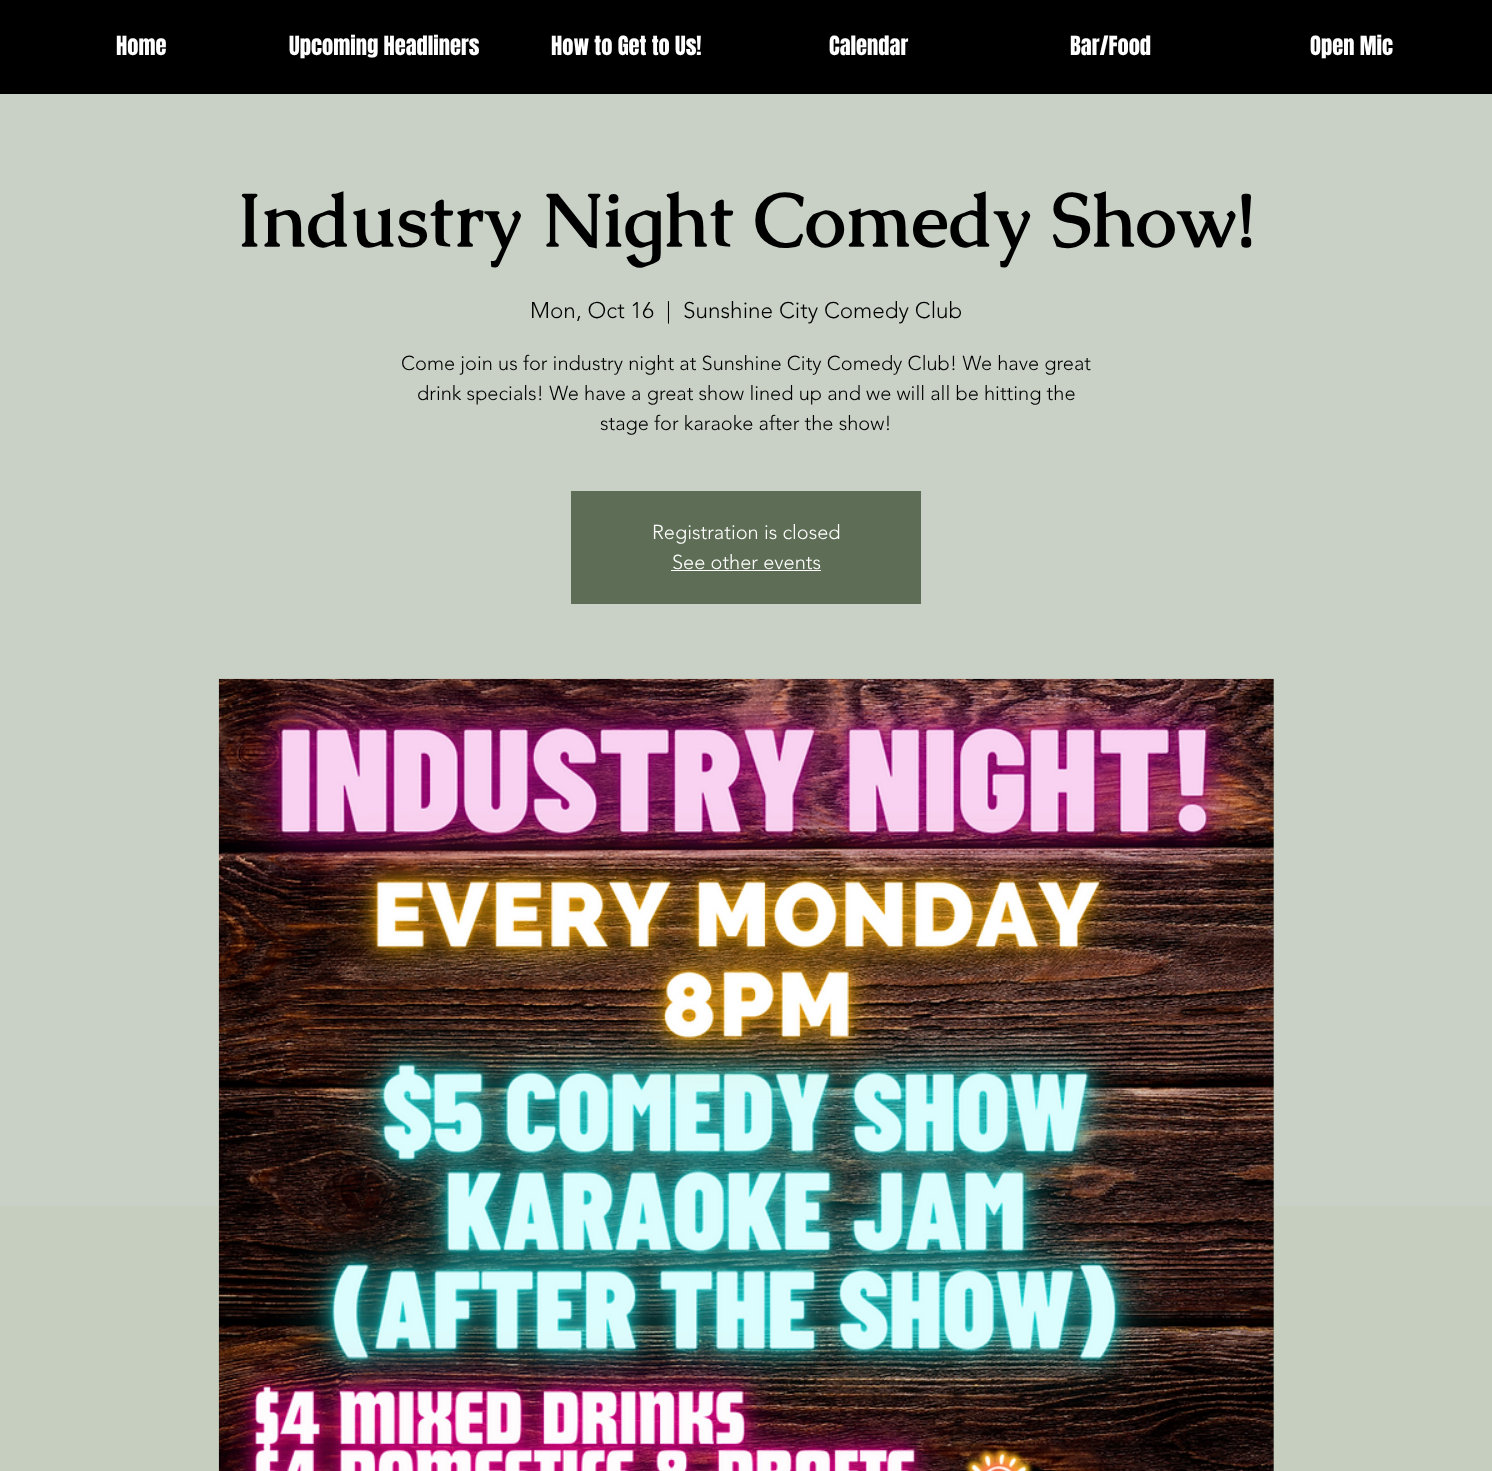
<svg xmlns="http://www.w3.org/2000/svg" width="1492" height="1471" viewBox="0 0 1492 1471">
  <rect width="100%" height="100%" fill="#000000"/>
  <text x="116" y="55" font-family="Anton" font-size="22.5" fill="#ffffff">Home</text>
  <text x="289" y="55" font-family="Anton" font-size="22.5" fill="#ffffff">Upcoming Headliners</text>
  <text x="551" y="55" font-family="Anton" font-size="22.5" fill="#ffffff">How to Get to Us!</text>
  <text x="829" y="55" font-family="Anton" font-size="22.5" fill="#ffffff">Calendar</text>
  <text x="1070" y="55" font-family="Anton" font-size="22.5" fill="#ffffff">Bar/Food</text>
  <text x="1310" y="55" font-family="Anton" font-size="22.5" fill="#ffffff">Open Mic</text>
  <rect x="0" y="94" width="1492" height="1112" fill="#c9d1c6"/>
  <text x="237" y="246" font-family="Caudex" font-size="75" font-weight="bold" fill="#000000">Industry Night Comedy Show!</text>
  <text x="530" y="318" font-family="'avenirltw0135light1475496'" font-size="22.5" font-weight="300" fill="#000000">Mon, Oct 16</text>
  <text x="666" y="318" font-family="'avenirltw0135light1475496'" font-size="22.5" font-weight="300" fill="#000000">|</text>
  <text x="683" y="318" font-family="'avenirltw0135light1475496'" font-size="22.5" font-weight="300" fill="#000000">Sunshine City Comedy Club</text>
  <text x="401" y="370" font-family="'avenirltw0135light1475496'" font-size="20" font-weight="300" fill="#000000">Come join us for industry night at Sunshine City Comedy Club! We have great</text>
  <text x="417" y="400" font-family="'avenirltw0135light1475496'" font-size="20" font-weight="300" fill="#000000">drink specials! We have a great show lined up and we will all be hitting the</text>
  <text x="600" y="430" font-family="'avenirltw0135light1475496'" font-size="20" font-weight="300" fill="#000000">stage for karaoke after the show!</text>
  <rect x="571" y="491" width="350" height="113" fill="#5e6d55"/>
  <text x="652" y="539" font-family="'avenirltw0135light1475496'" font-size="20" font-weight="300" fill="#ffffff">Registration is closed</text>
  <text x="672" y="569" font-family="'avenirltw0135light1475496'" font-size="20" font-weight="300" fill="#ffffff">See other events</text>
  <rect x="671" y="570" width="150" height="1" fill="#ffffff"/>
  <rect x="0" y="1206" width="1492" height="265" fill="#c5cebf"/>
  <rect x="1273" y="679" width="1" height="792" fill="#939e8c"/>
  <image x="218" y="678" width="1056" height="793" href="img1.png"/>
</svg>
